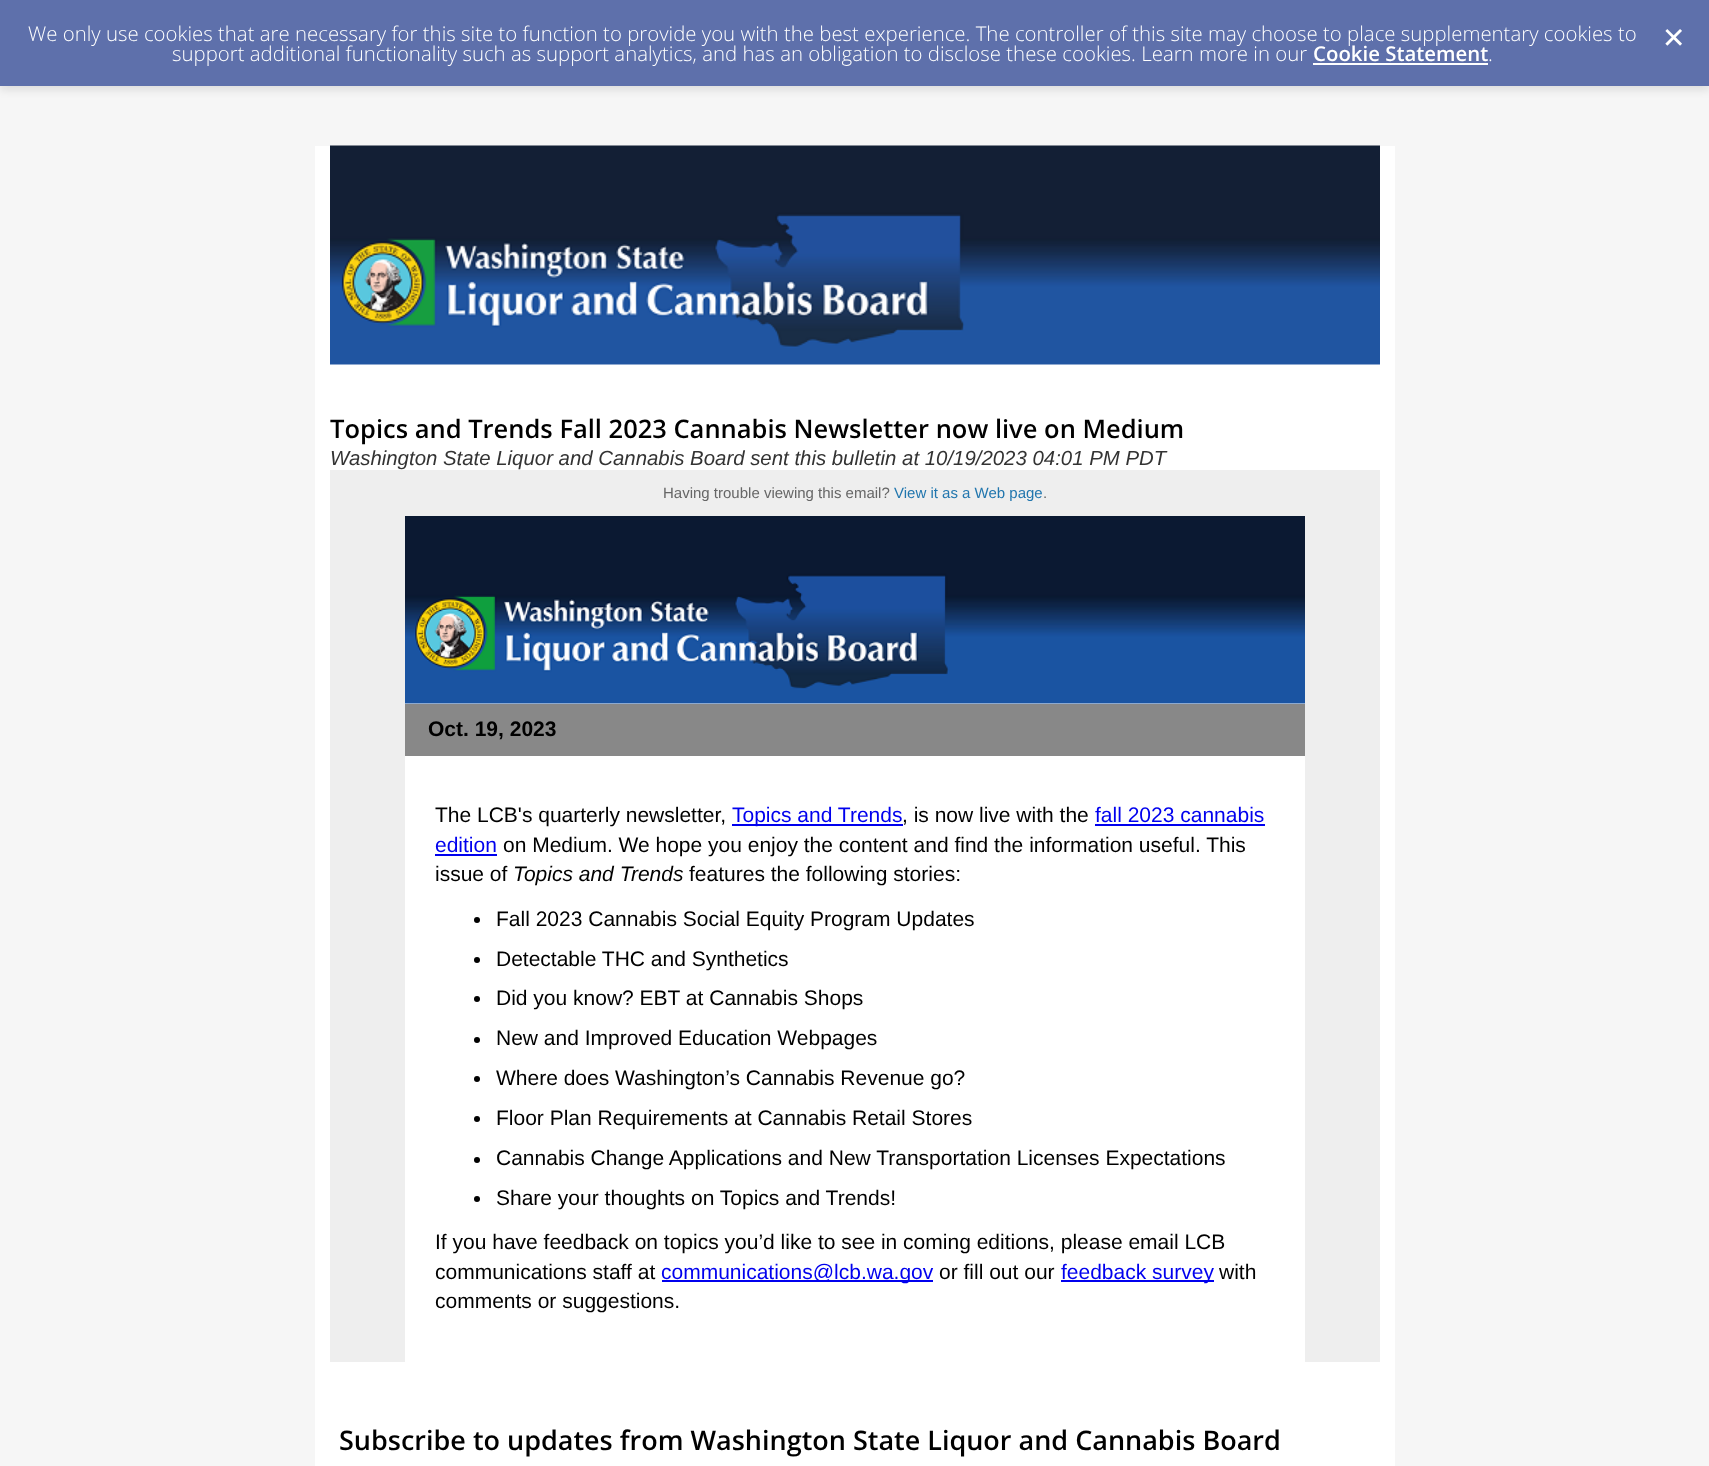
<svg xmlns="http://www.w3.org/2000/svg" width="1709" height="1466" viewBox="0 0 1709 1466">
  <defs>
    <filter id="blur1" x="-50%" y="-200%" width="200%" height="500%"><feGaussianBlur stdDeviation="4"/></filter>
  </defs>
  <rect width="100%" height="100%" fill="#f6f6f6"/>
  <rect x="0" y="5" width="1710" height="85" fill="#000000" fill-opacity="0.1" filter="url(#blur1)"/>
  <rect x="0" y="0" width="1709" height="86" fill="#5e70ab"/>
  <text x="28" y="41" font-family="Open Sans" font-size="20.4" font-weight="300" fill="#ffffff">We only use cookies that are necessary for this site to function to provide you with the best experience. The controller of this site may choose to place supplementary cookies to</text>
  <text x="172" y="61" font-family="Open Sans" font-size="20.4" font-weight="300" fill="#ffffff">support additional functionality such as support analytics, and has an obligation to disclose these cookies. Learn more in our</text>
  <text x="1313" y="61" font-family="Open Sans" font-size="20.4" font-weight="600" fill="#ffffff">Cookie Statement</text>
  <rect x="1313" y="63" width="175" height="2" fill="#ffffff"/>
  <text x="1488" y="61" font-family="Open Sans" font-size="20.4" font-weight="300" fill="#ffffff">.</text>
  <image x="1665" y="29" width="17" height="17" href="img1.png"/>
  <rect x="315" y="146" width="1080" height="1320" fill="#ffffff"/>
  <image x="330" y="145" width="1050" height="220" href="img2.png"/>
  <text x="330" y="438" font-family="Open Sans" font-size="25.5" font-weight="600" fill="#000000">Topics and Trends Fall 2023 Cannabis Newsletter now live on Medium</text>
  <text x="330" y="465" font-family="Liberation Sans" font-size="20.4" font-style="italic" fill="#333333">Washington State Liquor and Cannabis Board sent this bulletin at 10/19/2023 04:01 PM PDT</text>
  <rect x="330" y="470" width="1050" height="892" fill="#eeeeee"/>
  <text x="663" y="498" font-family="Liberation Sans" font-size="15" fill="#666666">Having trouble viewing this email?</text>
  <text x="894" y="498" font-family="Liberation Sans" font-size="15" fill="#2176ae">View it as a Web page</text>
  <text x="1043" y="498" font-family="Liberation Sans" font-size="15" fill="#666666">.</text>
  <rect x="405" y="703" width="900" height="659" fill="#ffffff"/>
  <image x="405" y="516" width="900" height="188" href="img3.png"/>
  <rect x="405" y="704" width="900" height="52" fill="#888888"/>
  <text x="428" y="736" font-family="Liberation Sans" font-size="21" font-weight="bold" fill="#000000">Oct. 19, 2023</text>
  <text x="435" y="822" font-family="Liberation Sans" font-size="21" fill="#000000">The LCB's quarterly newsletter,</text>
  <rect x="732" y="824" width="171" height="2" fill="#0000ee"/>
  <text x="732" y="822" font-family="Liberation Sans" font-size="21" fill="#0000ee">Topics and Trends</text>
  <text x="902" y="822" font-family="Liberation Sans" font-size="21" fill="#000000">, is now live with the</text>
  <text x="1095" y="822" font-family="Liberation Sans" font-size="21" fill="#0000ee">fall 2023 cannabis</text>
  <rect x="1095" y="824" width="170" height="2" fill="#0000ee"/>
  <text x="435" y="852" font-family="Liberation Sans" font-size="21" fill="#0000ee">edition</text>
  <rect x="435" y="854" width="62" height="2" fill="#0000ee"/>
  <text x="503" y="852" font-family="Liberation Sans" font-size="21" fill="#000000">on Medium. We hope you enjoy the content and find the information useful. This</text>
  <text x="435" y="881" font-family="Liberation Sans" font-size="21" fill="#000000">issue of</text>
  <text x="513" y="881" font-family="Liberation Sans" font-size="21" font-style="italic" fill="#000000">Topics and Trends</text>
  <text x="689" y="881" font-family="Liberation Sans" font-size="21" fill="#000000">features the following stories:</text>
  <circle cx="477" cy="920" r="3" fill="#000000"/>
  <text x="496" y="926" font-family="Liberation Sans" font-size="21" fill="#000000">Fall 2023 Cannabis Social Equity Program Updates</text>
  <circle cx="477" cy="960" r="3" fill="#000000"/>
  <text x="496" y="966" font-family="Liberation Sans" font-size="21" fill="#000000">Detectable THC and Synthetics</text>
  <circle cx="477" cy="999" r="3" fill="#000000"/>
  <text x="496" y="1005" font-family="Liberation Sans" font-size="21" fill="#000000">Did you know? EBT at Cannabis Shops</text>
  <circle cx="477" cy="1040" r="3" fill="#000000"/>
  <text x="496" y="1045" font-family="Liberation Sans" font-size="21" fill="#000000">New and Improved Education Webpages</text>
  <circle cx="477" cy="1079" r="3" fill="#000000"/>
  <text x="496" y="1085" font-family="Liberation Sans" font-size="21" fill="#000000">Where does Washington’s Cannabis Revenue go?</text>
  <circle cx="477" cy="1119" r="3" fill="#000000"/>
  <text x="496" y="1125" font-family="Liberation Sans" font-size="21" fill="#000000">Floor Plan Requirements at Cannabis Retail Stores</text>
  <circle cx="477" cy="1160" r="3" fill="#000000"/>
  <text x="496" y="1165" font-family="Liberation Sans" font-size="21" fill="#000000">Cannabis Change Applications and New Transportation Licenses Expectations</text>
  <circle cx="477" cy="1199" r="3" fill="#000000"/>
  <text x="496" y="1205" font-family="Liberation Sans" font-size="21" fill="#000000">Share your thoughts on Topics and Trends!</text>
  <text x="435" y="1249" font-family="Liberation Sans" font-size="21" fill="#000000">If you have feedback on topics you’d like to see in coming editions, please email LCB</text>
  <text x="435" y="1279" font-family="Liberation Sans" font-size="21" fill="#000000">communications staff at</text>
  <rect x="662" y="1280" width="271" height="2" fill="#0000ee"/>
  <text x="661" y="1279" font-family="Liberation Sans" font-size="21" fill="#0000ee">communications@lcb.wa.gov</text>
  <text x="939" y="1279" font-family="Liberation Sans" font-size="21" fill="#000000">or fill out our</text>
  <rect x="1061" y="1280" width="153" height="2" fill="#0000ee"/>
  <text x="1061" y="1279" font-family="Liberation Sans" font-size="21" fill="#0000ee">feedback survey</text>
  <text x="1219" y="1279" font-family="Liberation Sans" font-size="21" fill="#000000">with</text>
  <text x="435" y="1308" font-family="Liberation Sans" font-size="21" fill="#000000">comments or suggestions.</text>
  <text x="339" y="1450" font-family="Open Sans" font-size="27" font-weight="600" fill="#000000">Subscribe to updates from Washington State Liquor and Cannabis Board</text>
</svg>
